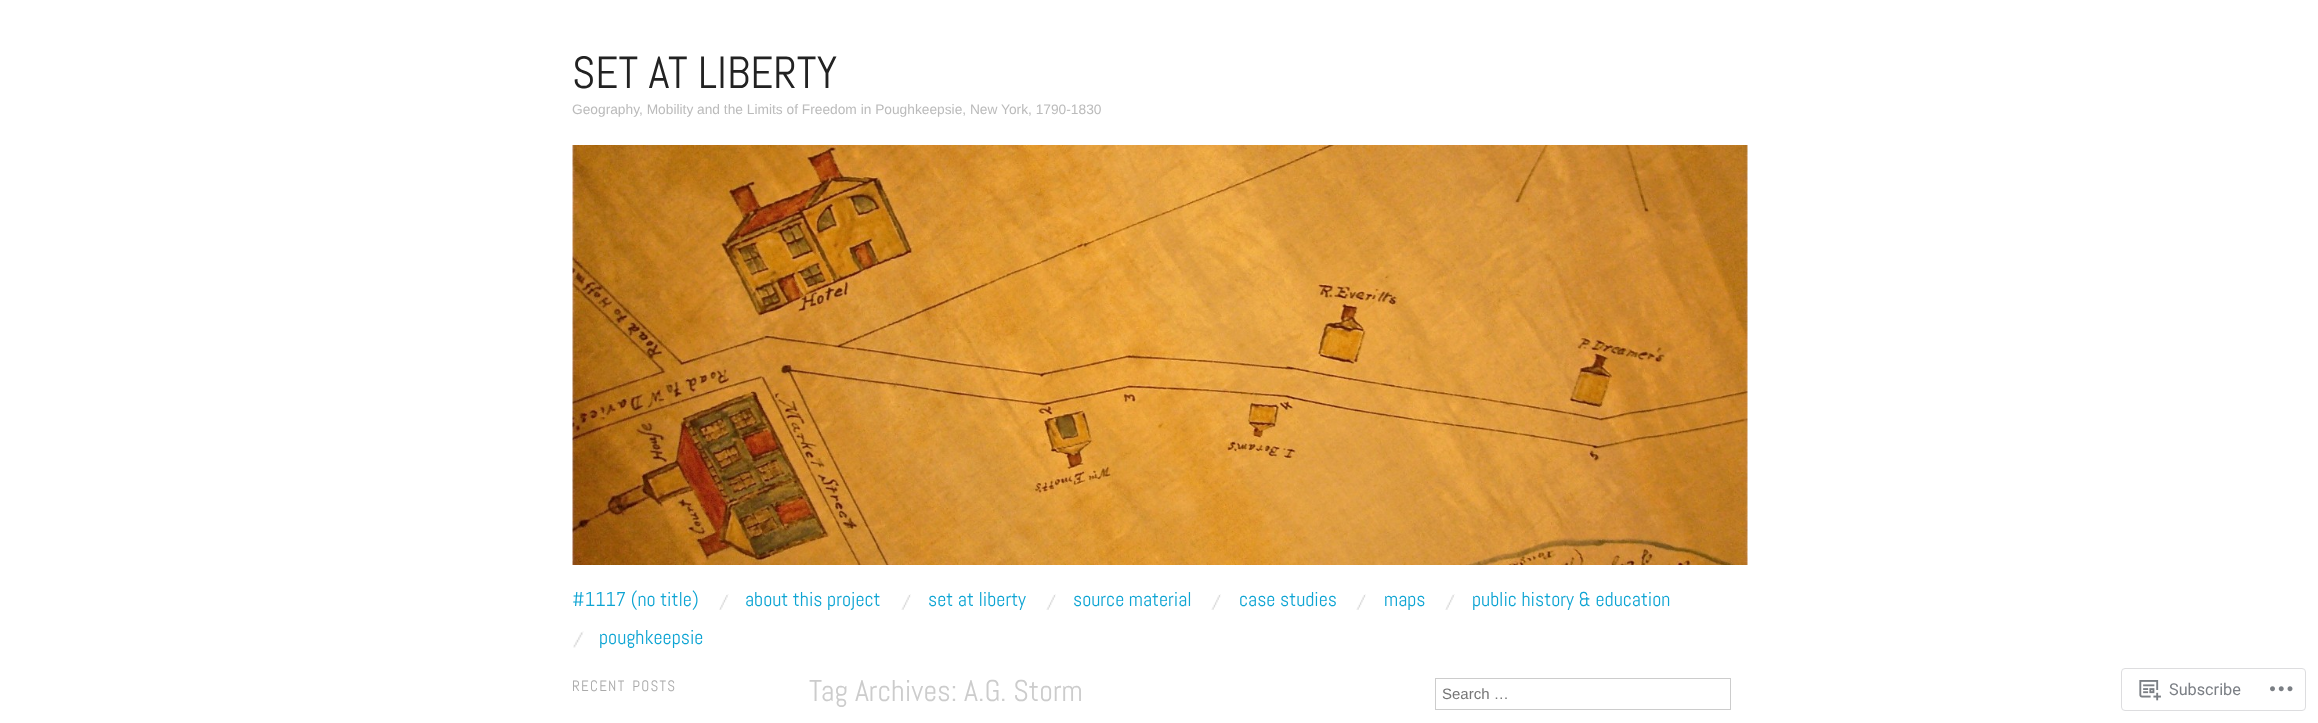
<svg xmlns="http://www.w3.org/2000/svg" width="2318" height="723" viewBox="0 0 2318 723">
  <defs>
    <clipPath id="clip1"><rect x="573" y="678" width="200" height="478"/></clipPath>
  </defs>
  <rect width="100%" height="100%" fill="#ffffff"/>
  <text x="572" y="88" font-family="Abel" font-size="45" fill="#222222">SET AT LIBERTY</text>
  <text x="572" y="114" font-family="Liberation Sans" font-size="13.75" fill="#bbbbbb">Geography, Mobility and the Limits of Freedom in Poughkeepsie, New York, 1790-1830</text>
  <image x="572" y="145" width="1176" height="420" href="img1.png"/>
  <text x="572" y="606" font-family="Abel" font-size="20" fill="#0da4d3">#1117 (no title)</text>
  <image x="719" y="594" width="10" height="16" href="img2.png"/>
  <text x="745" y="606" font-family="Abel" font-size="20" fill="#0da4d3">about this project</text>
  <image x="901" y="594" width="10" height="16" href="img3.png"/>
  <text x="928" y="606" font-family="Abel" font-size="20" fill="#0da4d3">set at liberty</text>
  <image x="1046" y="594" width="10" height="16" href="img3.png"/>
  <text x="1073" y="606" font-family="Abel" font-size="20" fill="#0da4d3">source material</text>
  <image x="1211" y="594" width="10" height="16" href="img3.png"/>
  <text x="1239" y="606" font-family="Abel" font-size="20" fill="#0da4d3">case studies</text>
  <image x="1356" y="594" width="10" height="16" href="img3.png"/>
  <text x="1384" y="606" font-family="Abel" font-size="20" fill="#0da4d3">maps</text>
  <image x="1445" y="594" width="10" height="16" href="img4.png"/>
  <text x="1472" y="606" font-family="Abel" font-size="20" fill="#0da4d3">public history &amp; education</text>
  <image x="573" y="631" width="11" height="17" href="img5.png"/>
  <text x="599" y="644" font-family="Abel" font-size="20" fill="#0da4d3">poughkeepsie</text>
  <g clip-path="url(#clip1)">
    <text x="572" y="691" word-spacing="2" font-family="Abel" font-size="15" letter-spacing="1.25" fill="#aaaaaa">RECENT POSTS</text>
  </g>
  <text x="809" y="701" font-family="Abel" font-size="30" fill="#cccccc">Tag Archives: A.G. Storm</text>
  <rect x="1435.5" y="678.5" width="295" height="31" fill="none" stroke="#cccccc"/>
  <text x="1442" y="699" font-family="Liberation Sans" font-size="15" fill="#757575">Search …</text>
  <rect x="2121.5" y="668.5" width="184" height="42" rx="3.5" fill="none" stroke="#dddddf"/>
  <image x="2139" y="680" width="22" height="21" href="img6.png"/>
  <text x="2169" y="695" font-family="Roboto" font-size="16.25" fill="#7b7f85">Subscribe</text>
  <image x="2270" y="686" width="23" height="6" href="img7.png"/>
</svg>
